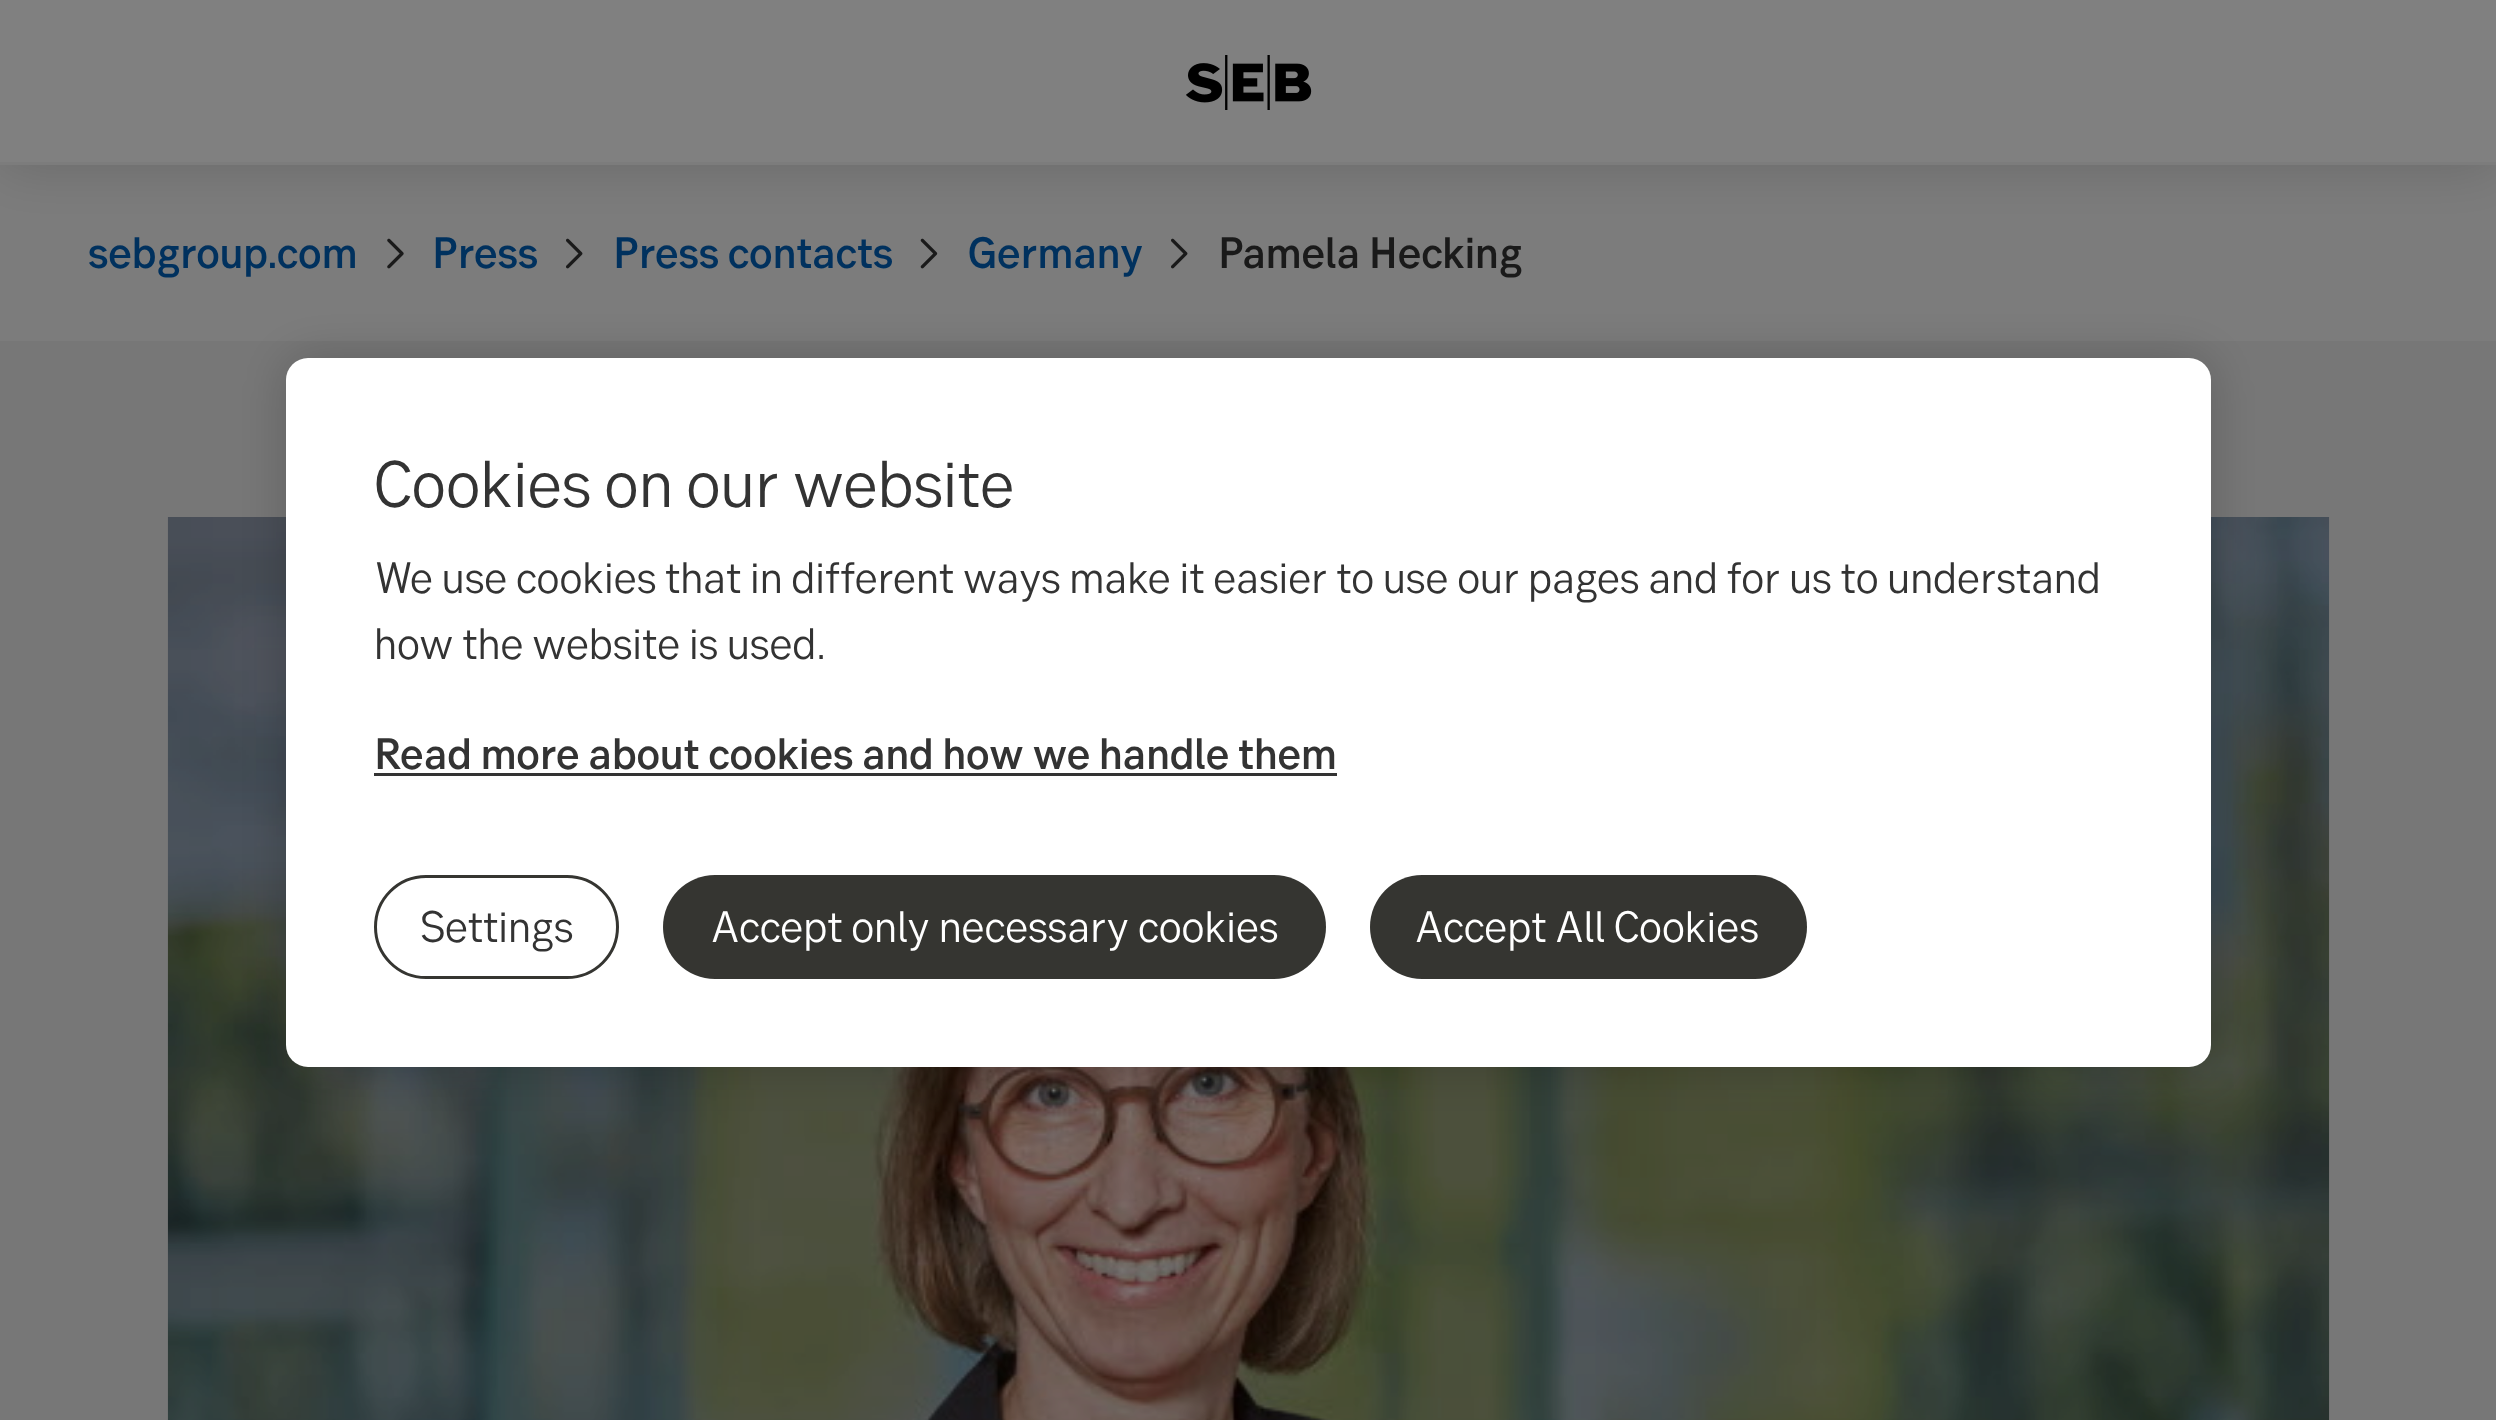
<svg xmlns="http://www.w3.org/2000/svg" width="2496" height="1420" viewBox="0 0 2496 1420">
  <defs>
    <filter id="blur1" x="-50%" y="-200%" width="200%" height="500%"><feGaussianBlur stdDeviation="27.5"/></filter>
    <filter id="blur2" x="-50%" y="-200%" width="200%" height="500%"><feGaussianBlur stdDeviation="25"/></filter>
  </defs>
  <rect width="100%" height="100%" fill="#777777"/>
  <rect x="0" y="165" width="2496" height="176" fill="#7c7c7c"/>
  <image x="387" y="238" width="17" height="31" href="img2.png"/>
  <image x="566" y="238" width="17" height="31" href="img3.png"/>
  <image x="920" y="238" width="18" height="31" href="img4.png"/>
  <image x="1171" y="238" width="17" height="31" href="img3.png"/>
  <rect x="0" y="3" width="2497" height="165" fill="#000000" fill-opacity="0.15" filter="url(#blur1)"/>
  <rect x="0" y="0" width="2496" height="162" fill="#808080"/>
  <rect x="0" y="162" width="2496" height="3" fill="#7c7c7c"/>
  <image x="1186" y="55" width="126" height="55" href="img1.png"/>
  <text x="88" y="268" font-family="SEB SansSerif" font-size="44" font-weight="500" fill="#00315e">sebgroup.com</text>
  <text x="432" y="268" font-family="SEB SansSerif" font-size="44" font-weight="500" fill="#00315e">Press</text>
  <text x="613" y="268" font-family="SEB SansSerif" font-size="44" font-weight="500" fill="#00315e">Press contacts</text>
  <text x="968" y="268" font-family="SEB SansSerif" font-size="44" font-weight="500" fill="#00315e">Germany</text>
  <text x="1218" y="268" font-family="SEB SansSerif" font-size="44" font-weight="500" fill="#1a1a1a">Pamela Hecking</text>
  <image x="167" y="517" width="2163" height="903" href="img5.png"/>
  <rect x="286" y="358" width="1925" height="709" rx="22" fill="#000000" fill-opacity="0.2" filter="url(#blur2)"/>
  <rect x="286" y="358" width="1925" height="709" rx="22" fill="#ffffff"/>
  <text x="374" y="507" font-family="SEB SansSerif" font-size="66" fill="#333333">Cookies on our website</text>
  <text x="374" y="593" font-family="SEB SansSerif" font-size="44" fill="#333333">We use cookies that in different ways make it easier to use our pages and for us to understand</text>
  <text x="374" y="659" font-family="SEB SansSerif" font-size="44" fill="#333333">how the website is used.</text>
  <text x="374" y="769" font-family="SEB SansSerif" font-size="44" font-weight="500" fill="#333333">Read more about cookies and how we handle them</text>
  <rect x="374" y="773" width="963" height="3" fill="#333333"/>
  <rect x="375.5" y="876.5" width="242" height="101" rx="50.5" fill="none" stroke="#353531" stroke-width="3"/>
  <text x="421" y="942" font-family="SEB SansSerif" font-size="44" fill="#333333">Settings</text>
  <rect x="663" y="875" width="663" height="104" rx="52" fill="#353531"/>
  <text x="711" y="942" font-family="SEB SansSerif" font-size="44" fill="#ffffff">Accept only necessary cookies</text>
  <rect x="1370" y="875" width="437" height="104" rx="52" fill="#353531"/>
  <text x="1415" y="942" font-family="SEB SansSerif" font-size="44" fill="#ffffff">Accept All Cookies</text>
</svg>
